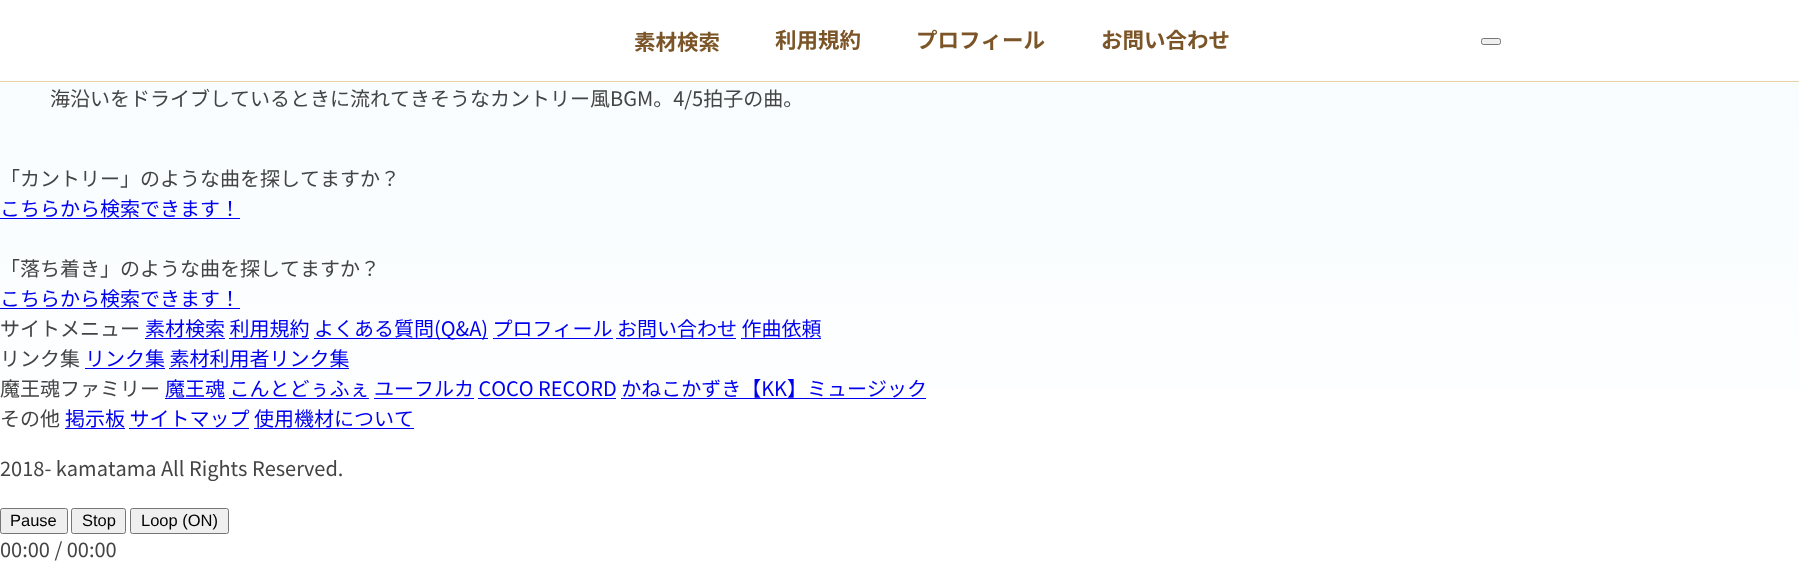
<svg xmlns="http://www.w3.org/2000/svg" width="1799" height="563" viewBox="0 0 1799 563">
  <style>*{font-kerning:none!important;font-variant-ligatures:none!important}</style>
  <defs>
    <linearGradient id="g1" gradientUnits="userSpaceOnUse" x1="900" y1="-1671" x2="900" y2="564"><stop offset="0" stop-color="#dff3ff"/><stop offset="1" stop-color="#ffffff"/></linearGradient>
  </defs>
  <rect width="100%" height="100%" fill="#ffffff"/>
  <rect x="0" y="83" width="1799" height="306" fill="url(#g1)"/>
  <rect x="0" y="81" width="1799" height="1" fill="#e6d2a6"/>
  <text x="634" y="50" font-family="Noto Sans JP" font-size="21.5" font-weight="bold" fill="#7b5527">素材検索</text>
  <text x="775" y="48" font-family="Noto Sans JP" font-size="21.5" font-weight="bold" fill="#7b5527">利用規約</text>
  <text x="916" y="48" font-family="Noto Sans JP" font-size="21.5" font-weight="bold" fill="#7b5527">プロフィール</text>
  <text x="1101" y="48" font-family="Noto Sans JP" font-size="21.5" font-weight="bold" fill="#7b5527">お問い合わせ</text>
  <rect x="1481.5" y="38.5" width="19" height="6" rx="2" fill="#efefef" stroke="#767676"/>
  <text x="50" y="106" font-family="Noto Sans JP" font-size="20" fill="#444444">海沿いをドライブしているときに流れてきそうなカントリー風BGM。4/5拍子の曲。</text>
  <text x="0" y="186" font-family="Noto Sans JP" font-size="20" fill="#444444">「カントリー」のような曲を探してますか？</text>
  <text x="0" y="216" font-family="Noto Sans JP" font-size="20" fill="#0000ee">こちらから検索できます！</text>
  <rect x="0" y="218" width="240" height="1" fill="#0000ee"/>
  <text x="0" y="276" font-family="Noto Sans JP" font-size="20" fill="#444444">「落ち着き」のような曲を探してますか？</text>
  <text x="0" y="306" font-family="Noto Sans JP" font-size="20" fill="#0000ee">こちらから検索できます！</text>
  <rect x="0" y="308" width="240" height="1" fill="#0000ee"/>
  <text x="0" y="336" font-family="Noto Sans JP" font-size="20" fill="#444444">サイトメニュー</text>
  <text x="145" y="336" font-family="Noto Sans JP" font-size="20" fill="#0000ee">素材検索 利用規約</text>
  <rect x="145" y="338" width="80" height="1" fill="#0000ee"/>
  <rect x="314" y="338" width="174" height="1" fill="#0000ee"/>
  <text x="314" y="336" font-family="Noto Sans JP" font-size="20" fill="#0000ee">よくある質問(Q&amp;A) プロフィール お問い合わせ 作曲依頼</text>
  <rect x="229" y="338" width="80" height="1" fill="#0000ee"/>
  <rect x="493" y="338" width="120" height="1" fill="#0000ee"/>
  <rect x="616" y="338" width="120" height="1" fill="#0000ee"/>
  <rect x="741" y="338" width="80" height="1" fill="#0000ee"/>
  <text x="0" y="366" font-family="Noto Sans JP" font-size="20" fill="#444444">リンク集</text>
  <text x="85" y="366" font-family="Noto Sans JP" font-size="20" fill="#0000ee">リンク集 素材利用者リンク集</text>
  <rect x="85" y="368" width="80" height="1" fill="#0000ee"/>
  <rect x="169" y="368" width="180" height="1" fill="#0000ee"/>
  <text x="0" y="396" font-family="Noto Sans JP" font-size="20" fill="#444444">魔王魂ファミリー</text>
  <text x="165" y="396" font-family="Noto Sans JP" font-size="20" fill="#0000ee">魔王魂 こんとどぅふぇ ユーフルカ COCO RECORD かねこかずき【KK】ミュージック</text>
  <rect x="165" y="398" width="60" height="1" fill="#0000ee"/>
  <rect x="229" y="398" width="140" height="1" fill="#0000ee"/>
  <rect x="374" y="398" width="100" height="1" fill="#0000ee"/>
  <rect x="478" y="398" width="138" height="1" fill="#0000ee"/>
  <rect x="621" y="398" width="305" height="1" fill="#0000ee"/>
  <text x="0" y="426" font-family="Noto Sans JP" font-size="20" fill="#444444">その他</text>
  <text x="65" y="426" font-family="Noto Sans JP" font-size="20" fill="#0000ee">掲示板 サイトマップ 使用機材について</text>
  <rect x="65" y="428" width="60" height="1" fill="#0000ee"/>
  <rect x="129" y="428" width="120" height="1" fill="#0000ee"/>
  <rect x="254" y="428" width="160" height="1" fill="#0000ee"/>
  <text x="0" y="476" font-family="Noto Sans JP" font-size="20" fill="#444444">2018- kamatama All Rights Reserved.</text>
  <rect x="0.5" y="508.5" width="67" height="25" rx="2" fill="#efefef" stroke="#767676"/>
  <text x="10" y="526" font-family="Liberation Sans" font-size="16.5" fill="#000000">Pause</text>
  <rect x="71.5" y="508.5" width="54" height="25" rx="2" fill="#efefef" stroke="#767676"/>
  <text x="82" y="526" font-family="Liberation Sans" font-size="16.5" fill="#000000">Stop</text>
  <rect x="130.5" y="508.5" width="98" height="25" rx="2" fill="#efefef" stroke="#767676"/>
  <text x="141" y="526" font-family="Liberation Sans" font-size="16.5" fill="#000000">Loop (ON)</text>
  <text x="0" y="557" font-family="Noto Sans JP" font-size="20" fill="#444444">00:00 / 00:00</text>
</svg>
